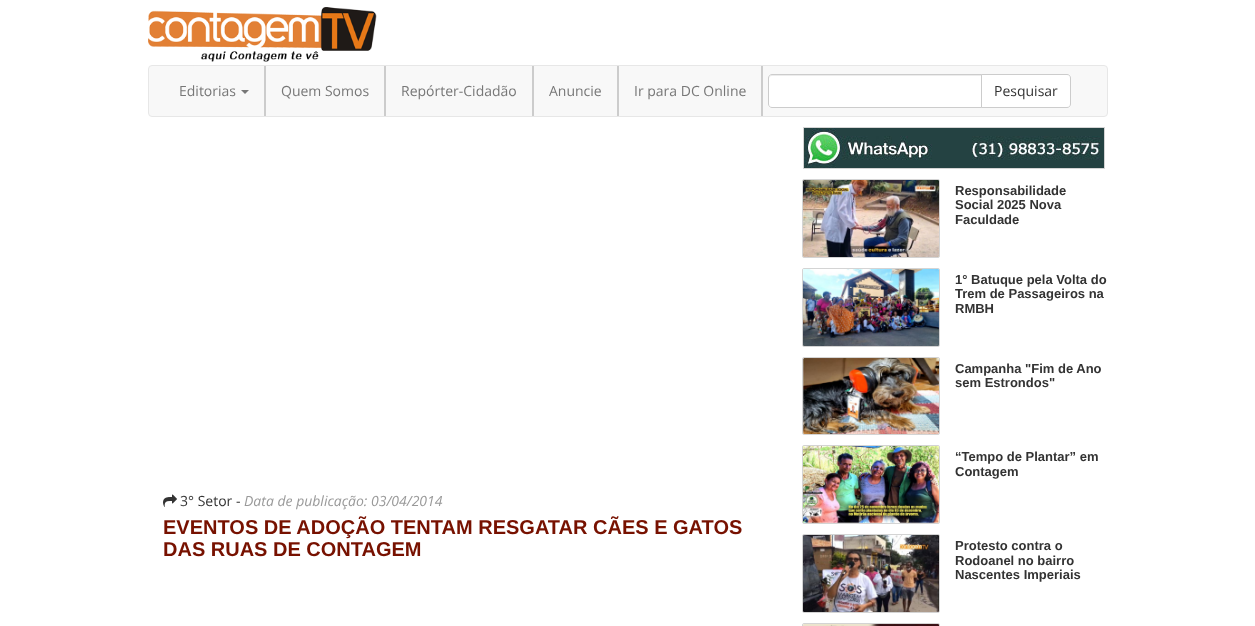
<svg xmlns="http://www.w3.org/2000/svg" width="1255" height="626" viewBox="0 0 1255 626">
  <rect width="100%" height="100%" fill="#ffffff"/>
  <image x="148" y="7" width="229" height="55" href="img1.png"/>
  <rect x="148.5" y="65.5" width="959" height="51" rx="3.5" fill="#f8f8f8" stroke="#e7e7e7"/>
  <rect x="264" y="66" width="2" height="50" fill="#cccccc"/>
  <text x="179" y="96" font-family="Open Sans" font-size="14" fill="#777777">Editorias</text>
  <path d="M241 90H249L245 94Z" fill="#777777"/>
  <rect x="384" y="66" width="2" height="50" fill="#cccccc"/>
  <text x="281" y="96" font-family="Open Sans" font-size="14" fill="#777777">Quem Somos</text>
  <rect x="532" y="66" width="2" height="50" fill="#cccccc"/>
  <text x="401" y="96" font-family="Open Sans" font-size="14" fill="#777777">Repórter-Cidadão</text>
  <rect x="617" y="66" width="2" height="50" fill="#cccccc"/>
  <text x="549" y="96" font-family="Open Sans" font-size="14" fill="#777777">Anuncie</text>
  <rect x="761" y="66" width="2" height="50" fill="#cccccc"/>
  <text x="634" y="96" font-family="Open Sans" font-size="14" fill="#777777">Ir para DC Online</text>
  <path d="M772 74H982V108H772C770 108 768 106 768 104V78C768 76 770 74 772 74Z" fill="#ffffff"/>
  <path d="M772 76H981V75H772C770 75 769 76 769 78V79C769 77 770 76 772 76Z" fill="#ececec"/>
  <path d="M772 74.5H981.5V107.5H772C770 107.5 768.5 106 768.5 104V78C768.5 76 770 74.5 772 74.5Z" fill="none" stroke="#cccccc"/>
  <path d="M981.5 74.5H1067C1069 74.5 1070.5 76 1070.5 78V104C1070.5 106 1069 107.5 1067 107.5H981.5Z" fill="#ffffff" stroke="#cccccc"/>
  <text x="994" y="96" font-family="Open Sans" font-size="14" fill="#333333">Pesquisar</text>
  <image x="163" y="494" width="14" height="13" href="img2.png"/>
  <text x="180" y="506" font-family="Open Sans" font-size="14" fill="#333333">3° Setor -</text>
  <text x="244" y="506" font-family="Open Sans" font-size="14" font-style="italic" fill="#999999">Data de publicação: 03/04/2014</text>
  <text x="163" y="534" font-family="Liberation Sans" font-size="20" font-weight="bold" fill="#771100">EVENTOS DE ADOÇÃO TENTAM RESGATAR CÃES E GATOS</text>
  <text x="163" y="556" font-family="Liberation Sans" font-size="20" font-weight="bold" fill="#771100">DAS RUAS DE CONTAGEM</text>
  <rect x="803.5" y="127.5" width="301" height="41" fill="none" stroke="#d4d4d4"/>
  <image x="804" y="128" width="300" height="40" href="img3.png"/>
  <rect x="802.5" y="179.5" width="137" height="78" rx="1.5" fill="none" stroke="#d4d4d4"/>
  <image x="803" y="180" width="136" height="77" href="img4.png"/>
  <text x="955" y="195" font-family="Liberation Sans" font-size="13" font-weight="bold" fill="#333333">Responsabilidade</text>
  <text x="955" y="209" font-family="Liberation Sans" font-size="13" font-weight="bold" fill="#333333">Social 2025 Nova</text>
  <text x="955" y="224" font-family="Liberation Sans" font-size="13" font-weight="bold" fill="#333333">Faculdade</text>
  <rect x="802.5" y="268.5" width="137" height="78" rx="1.5" fill="none" stroke="#d4d4d4"/>
  <image x="803" y="269" width="136" height="77" href="img5.png"/>
  <text x="955" y="284" font-family="Liberation Sans" font-size="13" font-weight="bold" fill="#333333">1° Batuque pela Volta do</text>
  <text x="955" y="298" font-family="Liberation Sans" font-size="13" font-weight="bold" fill="#333333">Trem de Passageiros na</text>
  <text x="955" y="313" font-family="Liberation Sans" font-size="13" font-weight="bold" fill="#333333">RMBH</text>
  <rect x="802.5" y="357.5" width="137" height="77" rx="1.5" fill="none" stroke="#d4d4d4"/>
  <image x="803" y="358" width="136" height="76" href="img6.png"/>
  <text x="955" y="373" font-family="Liberation Sans" font-size="13" font-weight="bold" fill="#333333">Campanha "Fim de Ano</text>
  <text x="955" y="387" font-family="Liberation Sans" font-size="13" font-weight="bold" fill="#333333">sem Estrondos"</text>
  <rect x="802.5" y="445.5" width="137" height="78" rx="1.5" fill="none" stroke="#d4d4d4"/>
  <image x="803" y="446" width="136" height="77" href="img7.png"/>
  <text x="955" y="461" font-family="Liberation Sans" font-size="13" font-weight="bold" fill="#333333">“Tempo de Plantar” em</text>
  <text x="955" y="476" font-family="Liberation Sans" font-size="13" font-weight="bold" fill="#333333">Contagem</text>
  <rect x="802.5" y="534.5" width="137" height="78" rx="1.5" fill="none" stroke="#d4d4d4"/>
  <image x="803" y="535" width="136" height="77" href="img8.png"/>
  <text x="955" y="550" font-family="Liberation Sans" font-size="13" font-weight="bold" fill="#333333">Protesto contra o</text>
  <text x="955" y="565" font-family="Liberation Sans" font-size="13" font-weight="bold" fill="#333333">Rodoanel no bairro</text>
  <text x="955" y="579" font-family="Liberation Sans" font-size="13" font-weight="bold" fill="#333333">Nascentes Imperiais</text>
  <rect x="802.5" y="623.5" width="137" height="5" rx="1.5" fill="none" stroke="#d4d4d4"/>
  <image x="803" y="624" width="136" height="2" href="img9.png"/>
</svg>
